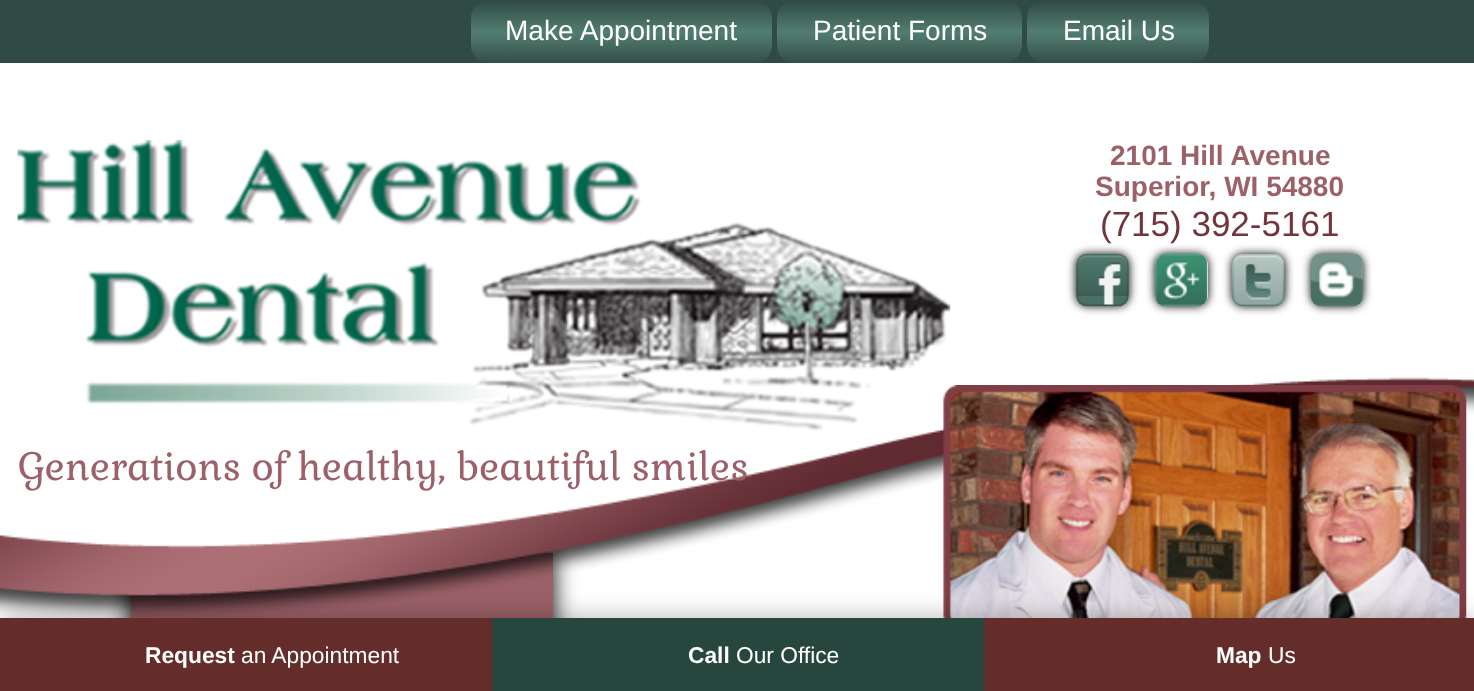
<svg xmlns="http://www.w3.org/2000/svg" width="1474" height="691" viewBox="0 0 1474 691">
  <defs>
    <linearGradient id="g1" gradientUnits="userSpaceOnUse" x1="621" y1="0" x2="621" y2="63"><stop offset="0.01" stop-color="#2f4b43"/><stop offset="0.51" stop-color="#537d71"/><stop offset="1" stop-color="#334e47"/></linearGradient>
    <linearGradient id="g2" gradientUnits="userSpaceOnUse" x1="900" y1="0" x2="900" y2="63"><stop offset="0.01" stop-color="#2f4b43"/><stop offset="0.51" stop-color="#537d71"/><stop offset="1" stop-color="#334e47"/></linearGradient>
    <linearGradient id="g3" gradientUnits="userSpaceOnUse" x1="1118" y1="0" x2="1118" y2="63"><stop offset="0.01" stop-color="#2f4b43"/><stop offset="0.51" stop-color="#537d71"/><stop offset="1" stop-color="#334e47"/></linearGradient>
    <filter id="blur1" x="-50%" y="-200%" width="200%" height="500%"><feGaussianBlur stdDeviation="11.5"/></filter>
    <filter id="blur2" x="-50%" y="-200%" width="200%" height="500%"><feGaussianBlur stdDeviation="5"/></filter>
    <clipPath id="clip1"><path d="M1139 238H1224V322H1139ZM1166 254H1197C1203 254 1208 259 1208 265V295C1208 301 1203 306 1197 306H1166C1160 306 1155 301 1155 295V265C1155 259 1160 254 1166 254Z" clip-rule="evenodd"/></clipPath>
    <clipPath id="clip2"><path d="M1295 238H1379V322H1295ZM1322 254H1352C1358 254 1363 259 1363 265V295C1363 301 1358 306 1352 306H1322C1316 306 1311 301 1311 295V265C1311 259 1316 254 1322 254Z" clip-rule="evenodd"/></clipPath>
    <filter id="blur3" x="-50%" y="-200%" width="200%" height="500%"><feGaussianBlur stdDeviation="13"/></filter>
  </defs>
  <rect width="100%" height="100%" fill="#ffffff"/>
  <rect x="0" y="0" width="1474" height="63" fill="#2f4b43"/>
  <rect x="471" y="0" width="301" height="63" rx="18" fill="url(#g1)"/>
  <text x="505" y="40" font-family="Liberation Sans" font-size="28" fill="#ffffff">Make Appointment</text>
  <rect x="777" y="0" width="245" height="63" rx="18" fill="url(#g2)"/>
  <text x="813" y="40" font-family="Liberation Sans" font-size="28" fill="#ffffff">Patient Forms</text>
  <rect x="1027" y="0" width="182" height="63" rx="18" fill="url(#g3)"/>
  <text x="1063" y="40" font-family="Liberation Sans" font-size="28" fill="#ffffff">Email Us</text>
  <rect x="131" y="553" width="422" height="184" rx="11" fill="#000000" filter="url(#blur1)"/>
  <rect x="131" y="553" width="422" height="65" fill="#9c6168"/>
  <image x="0" y="377" width="1474" height="241" href="img1.png"/>
  <text x="1110" y="165" font-family="Liberation Sans" font-size="28" font-weight="bold" fill="#9c6168">2101 Hill Avenue</text>
  <text x="1095" y="196" font-family="Liberation Sans" font-size="28" font-weight="bold" fill="#9c6168">Superior, WI 54880</text>
  <text x="1100" y="236" font-family="Liberation Sans" font-size="35" fill="#73353c">(715) 392-5161</text>
  <rect x="1076" y="254" width="53" height="52" rx="11" fill="#000000" filter="url(#blur2)"/>
  <g clip-path="url(#clip1)">
    <rect x="1155" y="254" width="53" height="52" rx="11" fill="#000000" filter="url(#blur2)"/>
  </g>
  <rect x="1232" y="254" width="53" height="52" rx="11" fill="#000000" filter="url(#blur2)"/>
  <g clip-path="url(#clip2)">
    <rect x="1311" y="254" width="52" height="52" rx="11" fill="#000000" filter="url(#blur2)"/>
  </g>
  <image x="1076" y="253" width="53" height="54" href="img2.png"/>
  <image x="1155" y="253" width="53" height="54" href="img3.png"/>
  <image x="1232" y="254" width="53" height="53" href="img4.png"/>
  <image x="1310" y="253" width="54" height="54" href="img5.png"/>
  <image x="17" y="140" width="934" height="291" href="img6.png"/>
  <text x="18" y="480" font-family="Gabriela" font-size="38.5" fill="#9c6168">Generations of healthy, beautiful smiles</text>
  <image x="943" y="385" width="524" height="233" href="img7.png"/>
  <rect x="0" y="618" width="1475" height="73" fill="#000000" fill-opacity="0.3" filter="url(#blur3)"/>
  <rect x="0" y="618" width="492" height="73" fill="#652d29"/>
  <text x="145" y="663" font-family="Liberation Sans" font-size="22.75" font-weight="bold" fill="#ffffff">Request</text>
  <text x="241" y="663" font-family="Liberation Sans" font-size="22.75" fill="#ffffff">an Appointment</text>
  <rect x="492" y="618" width="492" height="73" fill="#27463d"/>
  <text x="688" y="663" font-family="Liberation Sans" font-size="22.75" font-weight="bold" fill="#ffffff">Call</text>
  <text x="736" y="663" font-family="Liberation Sans" font-size="22.75" fill="#ffffff">Our Office</text>
  <rect x="984" y="618" width="490" height="73" fill="#652d29"/>
  <text x="1216" y="663" font-family="Liberation Sans" font-size="22.75" font-weight="bold" fill="#ffffff">Map</text>
  <text x="1268" y="663" font-family="Liberation Sans" font-size="22.75" fill="#ffffff">Us</text>
</svg>
